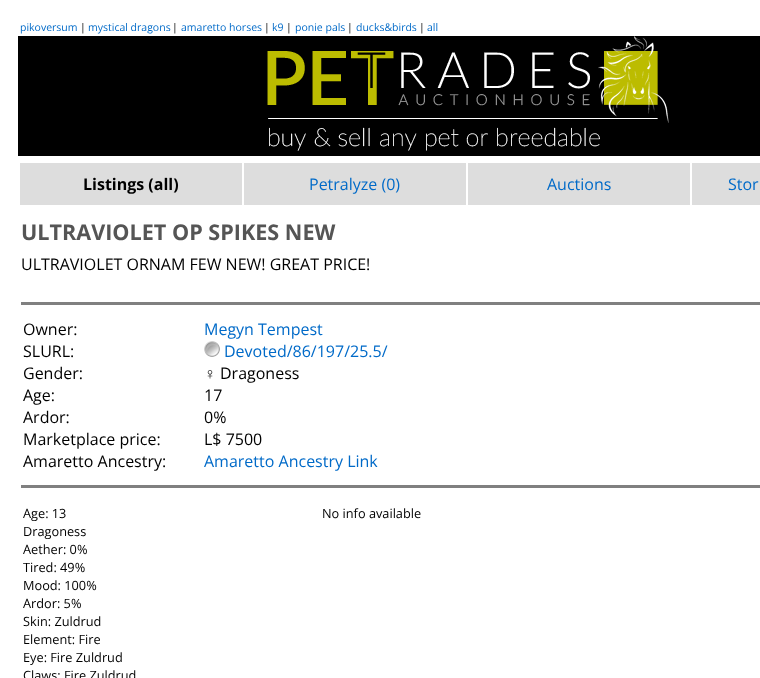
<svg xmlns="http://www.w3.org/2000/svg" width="760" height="678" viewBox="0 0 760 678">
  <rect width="100%" height="100%" fill="#ffffff"/>
  <text x="20" y="31" font-family="Open Sans" font-size="10.5" fill="#006ac8">pikoversum</text>
  <text x="80" y="31" font-family="Open Sans" font-size="10.5" fill="#000000">|</text>
  <text x="88" y="31" font-family="Open Sans" font-size="10.5" fill="#006ac8">mystical dragons</text>
  <text x="172" y="31" font-family="Open Sans" font-size="10.5" fill="#000000">|</text>
  <text x="181" y="31" font-family="Open Sans" font-size="10.5" fill="#006ac8">amaretto horses</text>
  <text x="264" y="31" font-family="Open Sans" font-size="10.5" fill="#000000">|</text>
  <text x="272" y="31" font-family="Open Sans" font-size="10.5" fill="#006ac8">k9</text>
  <text x="286" y="31" font-family="Open Sans" font-size="10.5" fill="#000000">|</text>
  <text x="295" y="31" font-family="Open Sans" font-size="10.5" fill="#006ac8">ponie pals</text>
  <text x="347" y="31" font-family="Open Sans" font-size="10.5" fill="#000000">|</text>
  <text x="356" y="31" font-family="Open Sans" font-size="10.5" fill="#006ac8">ducks&amp;birds</text>
  <text x="419" y="31" font-family="Open Sans" font-size="10.5" fill="#000000">|</text>
  <text x="427" y="31" font-family="Open Sans" font-size="10.5" fill="#006ac8">all</text>
  <image x="18" y="36" width="742" height="120" href="img1.png"/>
  <rect x="20" y="163" width="222" height="42" fill="#dddddd"/>
  <text x="83" y="190" font-family="Open Sans" font-size="16" font-weight="bold" fill="#000000">Listings (all)</text>
  <rect x="244" y="163" width="222" height="42" fill="#dddddd"/>
  <text x="309" y="190" font-family="Open Sans" font-size="16" fill="#006ac8">Petralyze (0)</text>
  <rect x="468" y="163" width="222" height="42" fill="#dddddd"/>
  <text x="547" y="190" font-family="Open Sans" font-size="16" fill="#006ac8">Auctions</text>
  <rect x="692" y="163" width="68" height="42" fill="#dddddd"/>
  <text x="728" y="190" font-family="Open Sans" font-size="16" fill="#006ac8">Stor</text>
  <text x="21" y="240" font-family="Open Sans" font-size="21.6" font-weight="bold" fill="#555555">ULTRAVIOLET OP SPIKES NEW</text>
  <text x="21" y="270" font-family="Open Sans" font-size="16" fill="#000000">ULTRAVIOLET ORNAM FEW NEW! GREAT PRICE!</text>
  <rect x="21" y="302" width="739" height="3" fill="#808080"/>
  <text x="23" y="335" font-family="Open Sans" font-size="16" fill="#000000">Owner:</text>
  <text x="23" y="357" font-family="Open Sans" font-size="16" fill="#000000">SLURL:</text>
  <text x="23" y="379" font-family="Open Sans" font-size="16" fill="#000000">Gender:</text>
  <text x="23" y="401" font-family="Open Sans" font-size="16" fill="#000000">Age:</text>
  <text x="23" y="423" font-family="Open Sans" font-size="16" fill="#000000">Ardor:</text>
  <text x="23" y="445" font-family="Open Sans" font-size="16" fill="#000000">Marketplace price:</text>
  <text x="23" y="467" font-family="Open Sans" font-size="16" fill="#000000">Amaretto Ancestry:</text>
  <text x="204" y="335" font-family="Open Sans" font-size="16" fill="#006ac8">Megyn Tempest</text>
  <image x="204" y="341" width="16" height="16" href="img2.png"/>
  <text x="224" y="357" font-family="Open Sans" font-size="16" fill="#006ac8">Devoted/86/197/25.5/</text>
  <text x="204" y="379" font-family="Liberation Sans" font-size="16" fill="#000000">♀</text>
  <text x="220" y="379" font-family="Open Sans" font-size="16" fill="#000000">Dragoness</text>
  <text x="204" y="401" font-family="Open Sans" font-size="16" fill="#000000">17</text>
  <text x="204" y="423" font-family="Open Sans" font-size="16" fill="#000000">0%</text>
  <text x="204" y="445" font-family="Open Sans" font-size="16" fill="#000000">L$ 7500</text>
  <text x="204" y="467" font-family="Open Sans" font-size="16" fill="#006ac8">Amaretto Ancestry Link</text>
  <rect x="21" y="485" width="739" height="3" fill="#808080"/>
  <text x="23" y="518" font-family="Open Sans" font-size="12.75" fill="#000000">Age: 13</text>
  <text x="23" y="536" font-family="Open Sans" font-size="12.75" fill="#000000">Dragoness</text>
  <text x="23" y="554" font-family="Open Sans" font-size="12.75" fill="#000000">Aether: 0%</text>
  <text x="23" y="572" font-family="Open Sans" font-size="12.75" fill="#000000">Tired: 49%</text>
  <text x="23" y="590" font-family="Open Sans" font-size="12.75" fill="#000000">Mood: 100%</text>
  <text x="23" y="608" font-family="Open Sans" font-size="12.75" fill="#000000">Ardor: 5%</text>
  <text x="23" y="626" font-family="Open Sans" font-size="12.75" fill="#000000">Skin: Zuldrud</text>
  <text x="23" y="644" font-family="Open Sans" font-size="12.75" fill="#000000">Element: Fire</text>
  <text x="23" y="662" font-family="Open Sans" font-size="12.75" fill="#000000">Eye: Fire Zuldrud</text>
  <text x="23" y="680" font-family="Open Sans" font-size="12.75" fill="#000000">Claws: Fire Zuldrud</text>
  <text x="322" y="518" font-family="Open Sans" font-size="12.75" fill="#000000">No info available</text>
</svg>
